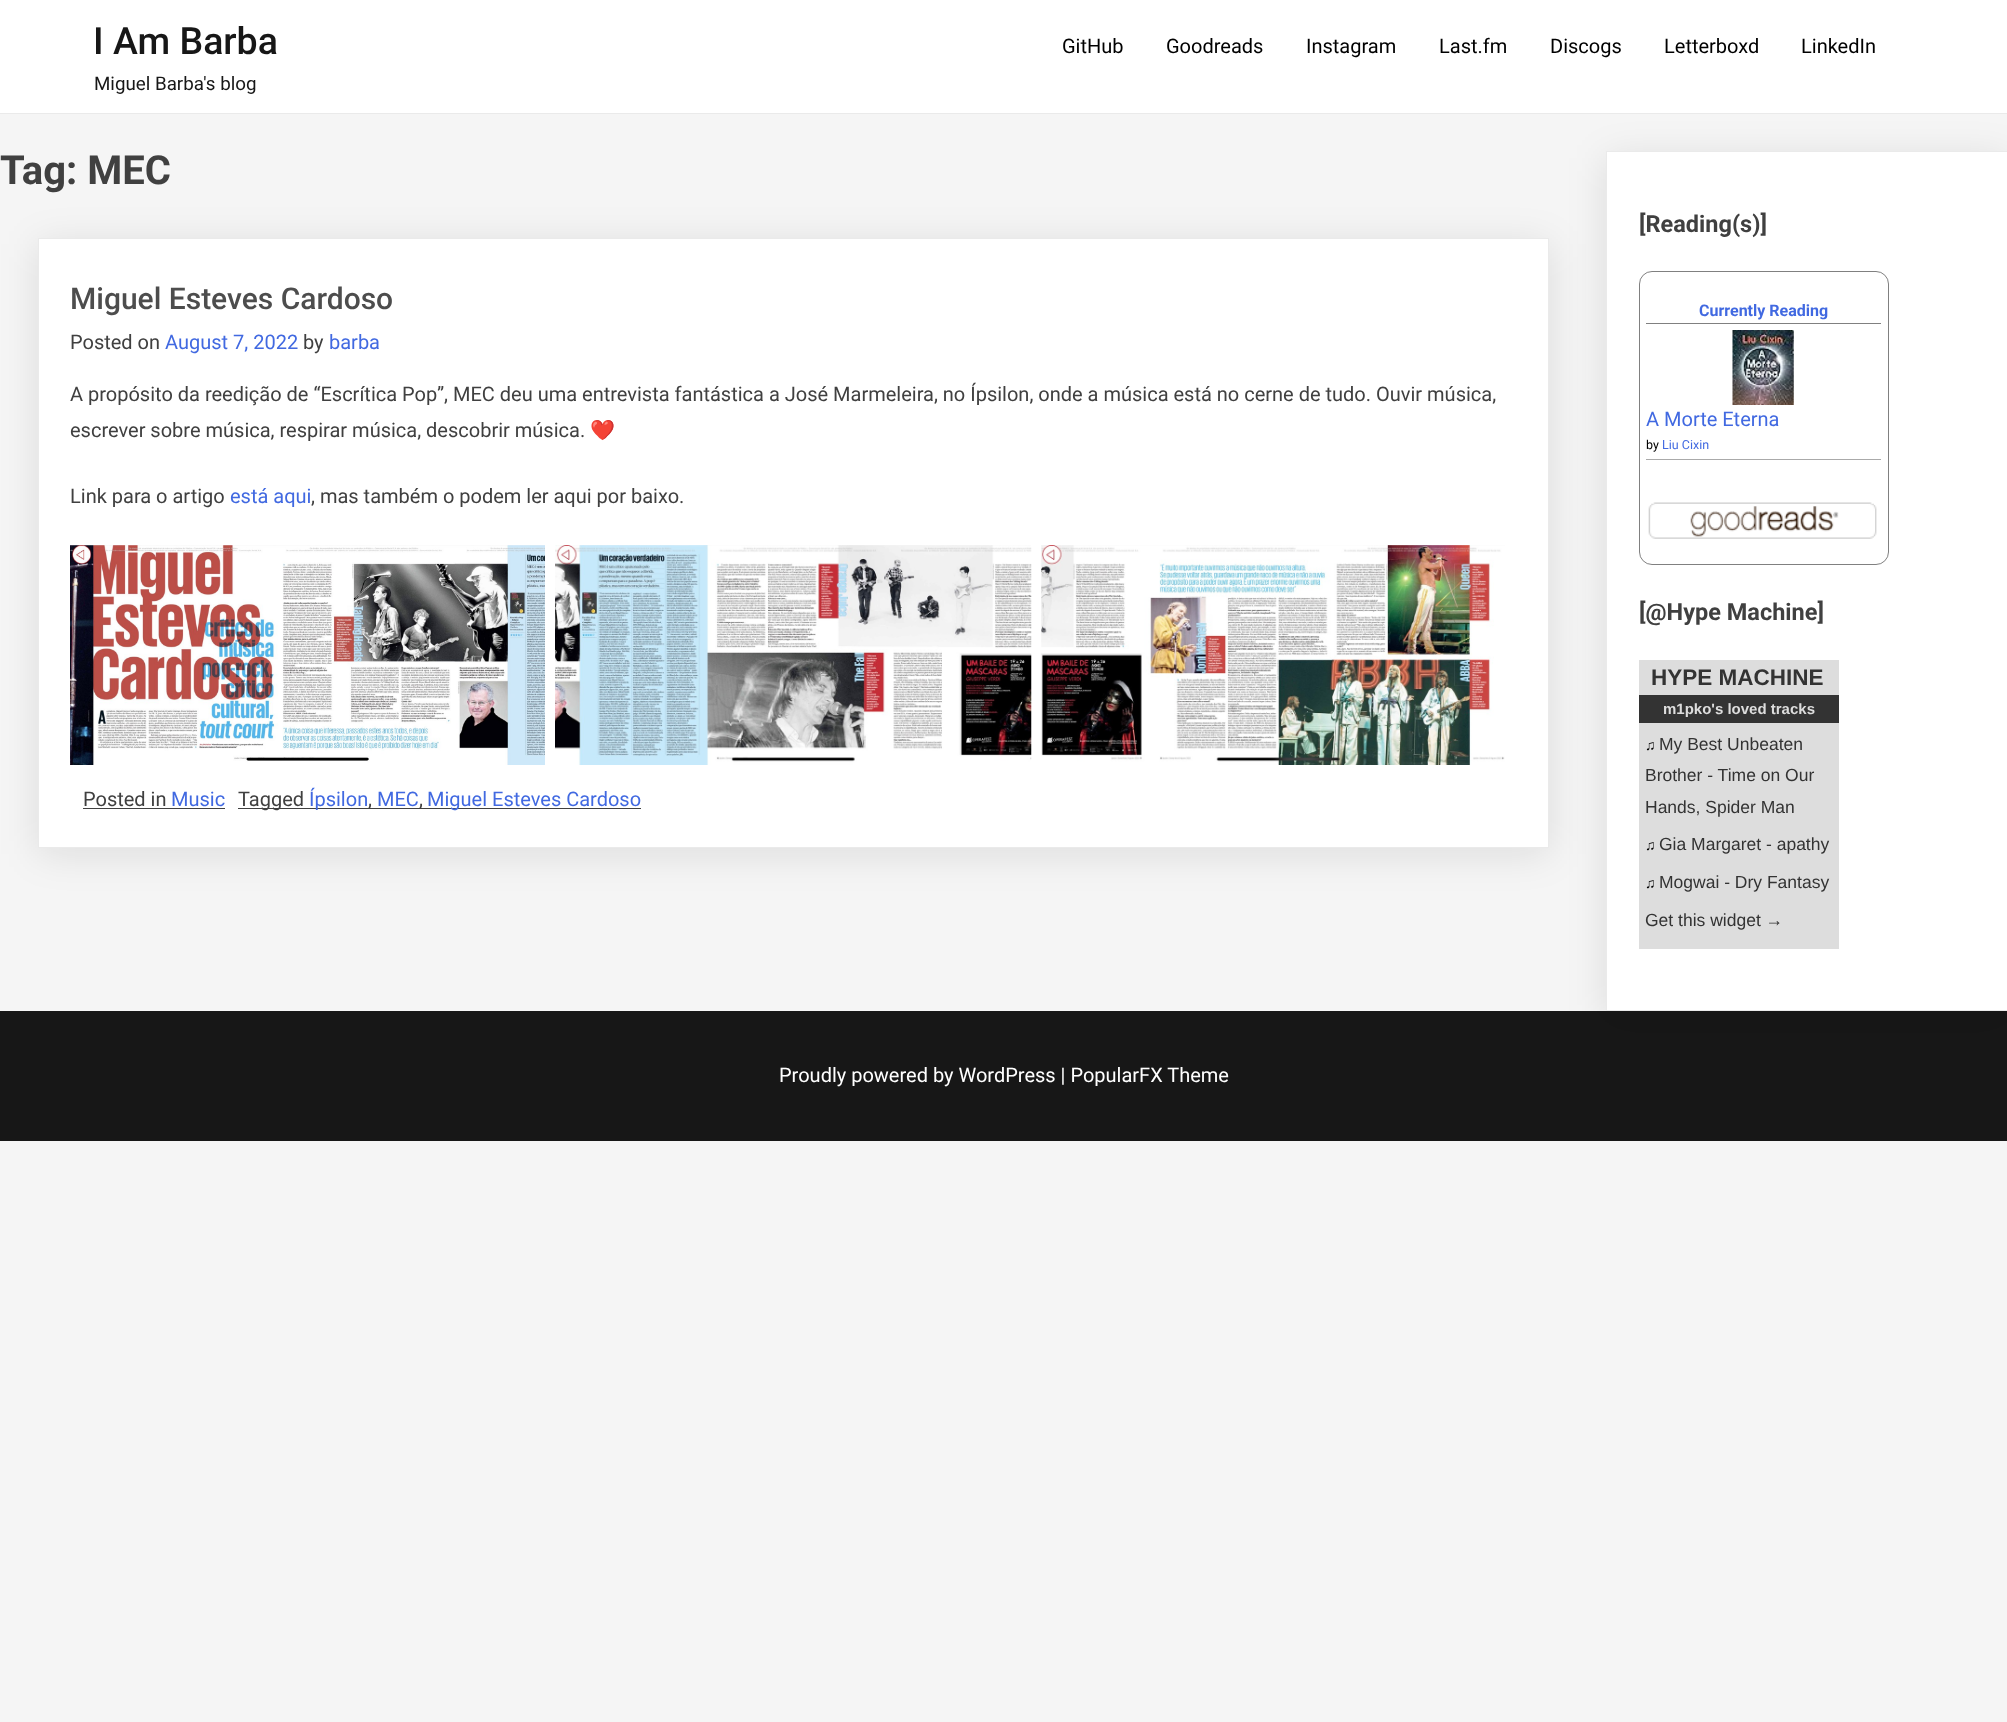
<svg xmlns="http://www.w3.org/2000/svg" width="2007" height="1722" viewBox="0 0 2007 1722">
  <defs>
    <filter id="blur1" x="-50%" y="-200%" width="200%" height="500%"><feGaussianBlur stdDeviation="19"/></filter>
  </defs>
  <rect width="100%" height="100%" fill="#f5f5f5"/>
  <rect x="38" y="244" width="1511" height="610" fill="#000000" fill-opacity="0.1" filter="url(#blur1)"/>
  <rect x="38.5" y="238.5" width="1510" height="609" fill="#ffffff" stroke="#eaeaea"/>
  <rect x="0" y="1011" width="2007" height="130" fill="#171717"/>
  <rect x="1606" y="158" width="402" height="860" fill="#000000" fill-opacity="0.1" filter="url(#blur1)"/>
  <rect x="0" y="0" width="2007" height="113" fill="#ffffff"/>
  <rect x="0" y="113" width="2007" height="1" fill="#eaeaea"/>
  <text x="93" y="54" font-family="Roboto" font-size="37.5" font-weight="500" fill="#171717">I Am Barba</text>
  <text x="94" y="90" font-family="Roboto" font-size="18.75" fill="#171717">Miguel Barba's blog</text>
  <text x="1062" y="53" font-family="Roboto" font-size="20" fill="#000000">GitHub</text>
  <text x="1166" y="53" font-family="Roboto" font-size="20" fill="#000000">Goodreads</text>
  <text x="1306" y="53" font-family="Roboto" font-size="20" fill="#000000">Instagram</text>
  <text x="1439" y="53" font-family="Roboto" font-size="20" fill="#000000">Last.fm</text>
  <text x="1550" y="53" font-family="Roboto" font-size="20" fill="#000000">Discogs</text>
  <text x="1664" y="53" font-family="Roboto" font-size="20" fill="#000000">Letterboxd</text>
  <text x="1801" y="53" font-family="Roboto" font-size="20" fill="#000000">LinkedIn</text>
  <text x="0" y="184" font-family="Roboto" font-size="40" font-weight="bold" fill="#404040">Tag: MEC</text>
  <text x="70" y="309" font-family="Roboto" font-size="30" font-weight="500" fill="#4d4d4d">Miguel Esteves Cardoso</text>
  <text x="70" y="349" font-family="Roboto" font-size="20" fill="#404040">Posted on</text>
  <text x="165" y="349" font-family="Roboto" font-size="20" fill="#4169e1">August 7, 2022</text>
  <text x="303" y="349" font-family="Roboto" font-size="20" fill="#404040">by</text>
  <text x="329" y="349" font-family="Roboto" font-size="20" fill="#4169e1">barba</text>
  <text x="70" y="401" font-family="Roboto" font-size="20" fill="#404040">A propósito da reedição de “Escrítica Pop”, MEC deu uma entrevista fantástica a José Marmeleira, no Ípsilon, onde a música está no cerne de tudo. Ouvir música,</text>
  <text x="70" y="437" font-family="Roboto" font-size="20" fill="#404040">escrever sobre música, respirar música, descobrir música.</text>
  <text x="590" y="437" font-family="Noto Color Emoji" font-size="20" fill="#404040">❤️</text>
  <text x="70" y="503" font-family="Roboto" font-size="20" fill="#404040">Link para o artigo</text>
  <text x="230" y="503" font-family="Roboto" font-size="20" fill="#4169e1">está aqui</text>
  <text x="311" y="503" font-family="Roboto" font-size="20" fill="#404040">, mas também o podem ler aqui por baixo.</text>
  <image x="70" y="545" width="475" height="220" href="img1.png"/>
  <image x="555" y="545" width="477" height="220" href="img2.png"/>
  <image x="1041" y="545" width="464" height="220" href="img3.png"/>
  <text x="83" y="806" font-family="Roboto" font-size="20" fill="#404040">Posted in</text>
  <rect x="83" y="808" width="142" height="1" fill="#404040"/>
  <text x="171" y="806" font-family="Roboto" font-size="20" fill="#4169e1">Music</text>
  <rect x="238" y="808" width="403" height="1" fill="#404040"/>
  <text x="238" y="806" font-family="Roboto" font-size="20" fill="#404040">Tagged</text>
  <text x="309" y="806" font-family="Roboto" font-size="20" fill="#4169e1">Ípsilon</text>
  <text x="368" y="806" font-family="Roboto" font-size="20" fill="#404040">,</text>
  <text x="377" y="806" font-family="Roboto" font-size="20" fill="#4169e1">MEC</text>
  <text x="419" y="806" font-family="Roboto" font-size="20" fill="#404040">,</text>
  <text x="427" y="806" font-family="Roboto" font-size="20" fill="#4169e1">Miguel Esteves Cardoso</text>
  <rect x="1606.5" y="151.5" width="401" height="859" fill="#ffffff" stroke="#eaeaea"/>
  <text x="1639" y="232" font-family="Roboto" font-size="23.5" font-weight="bold" fill="#404040">[Reading(s)]</text>
  <rect x="1639.5" y="271.5" width="249" height="293" rx="12.5" fill="none" stroke="#808080"/>
  <rect x="1646" y="323" width="235" height="1" fill="#808080"/>
  <text x="1699" y="316" font-family="Roboto" font-size="16" font-weight="bold" fill="#4169e1">Currently Reading</text>
  <rect x="1646" y="459" width="235" height="1" fill="#aaaaaa"/>
  <image x="1732" y="330" width="62" height="75" href="img4.png"/>
  <text x="1646" y="426" font-family="Roboto" font-size="20" fill="#4169e1">A Morte Eterna</text>
  <text x="1646" y="449" font-family="Roboto" font-size="12.5" fill="#000000">by</text>
  <text x="1662" y="449" font-family="Roboto" font-size="12.5" fill="#4169e1">Liu Cixin</text>
  <image x="1648" y="502" width="229" height="37" href="img5.png"/>
  <text x="1639" y="620" font-family="Roboto" font-size="23.5" font-weight="bold" fill="#404040">[@Hype Machine]</text>
  <rect x="1639" y="660" width="200" height="289" fill="#dddddd"/>
  <text x="1651" y="685" font-family="Liberation Sans" font-size="22.5" font-weight="bold" fill="#333333">HYPE MACHINE</text>
  <rect x="1639" y="695" width="200" height="28" fill="#333333"/>
  <text x="1663" y="714" font-family="Liberation Sans" font-size="15" font-weight="bold" fill="#dddddd">m1pko's loved tracks</text>
  <text x="1645" y="750" font-family="Liberation Serif" font-size="14" font-weight="bold" fill="#000000">♫</text>
  <text x="1659" y="750" font-family="Liberation Sans" font-size="17.5" fill="#333333">My Best Unbeaten</text>
  <text x="1645" y="781" font-family="Liberation Sans" font-size="17.5" fill="#333333">Brother - Time on Our</text>
  <text x="1645" y="813" font-family="Liberation Sans" font-size="17.5" fill="#333333">Hands, Spider Man</text>
  <text x="1645" y="850" font-family="Liberation Serif" font-size="14" font-weight="bold" fill="#000000">♫</text>
  <text x="1659" y="850" font-family="Liberation Sans" font-size="17.5" fill="#333333">Gia Margaret - apathy</text>
  <text x="1645" y="888" font-family="Liberation Serif" font-size="14" font-weight="bold" fill="#000000">♫</text>
  <text x="1659" y="888" font-family="Liberation Sans" font-size="17.5" fill="#333333">Mogwai - Dry Fantasy</text>
  <text x="1645" y="926" font-family="Liberation Sans" font-size="17.5" fill="#333333">Get this widget →</text>
  <text x="779" y="1082" font-family="Roboto" font-size="20" fill="#ffffff">Proudly powered by WordPress | PopularFX Theme</text>
</svg>
